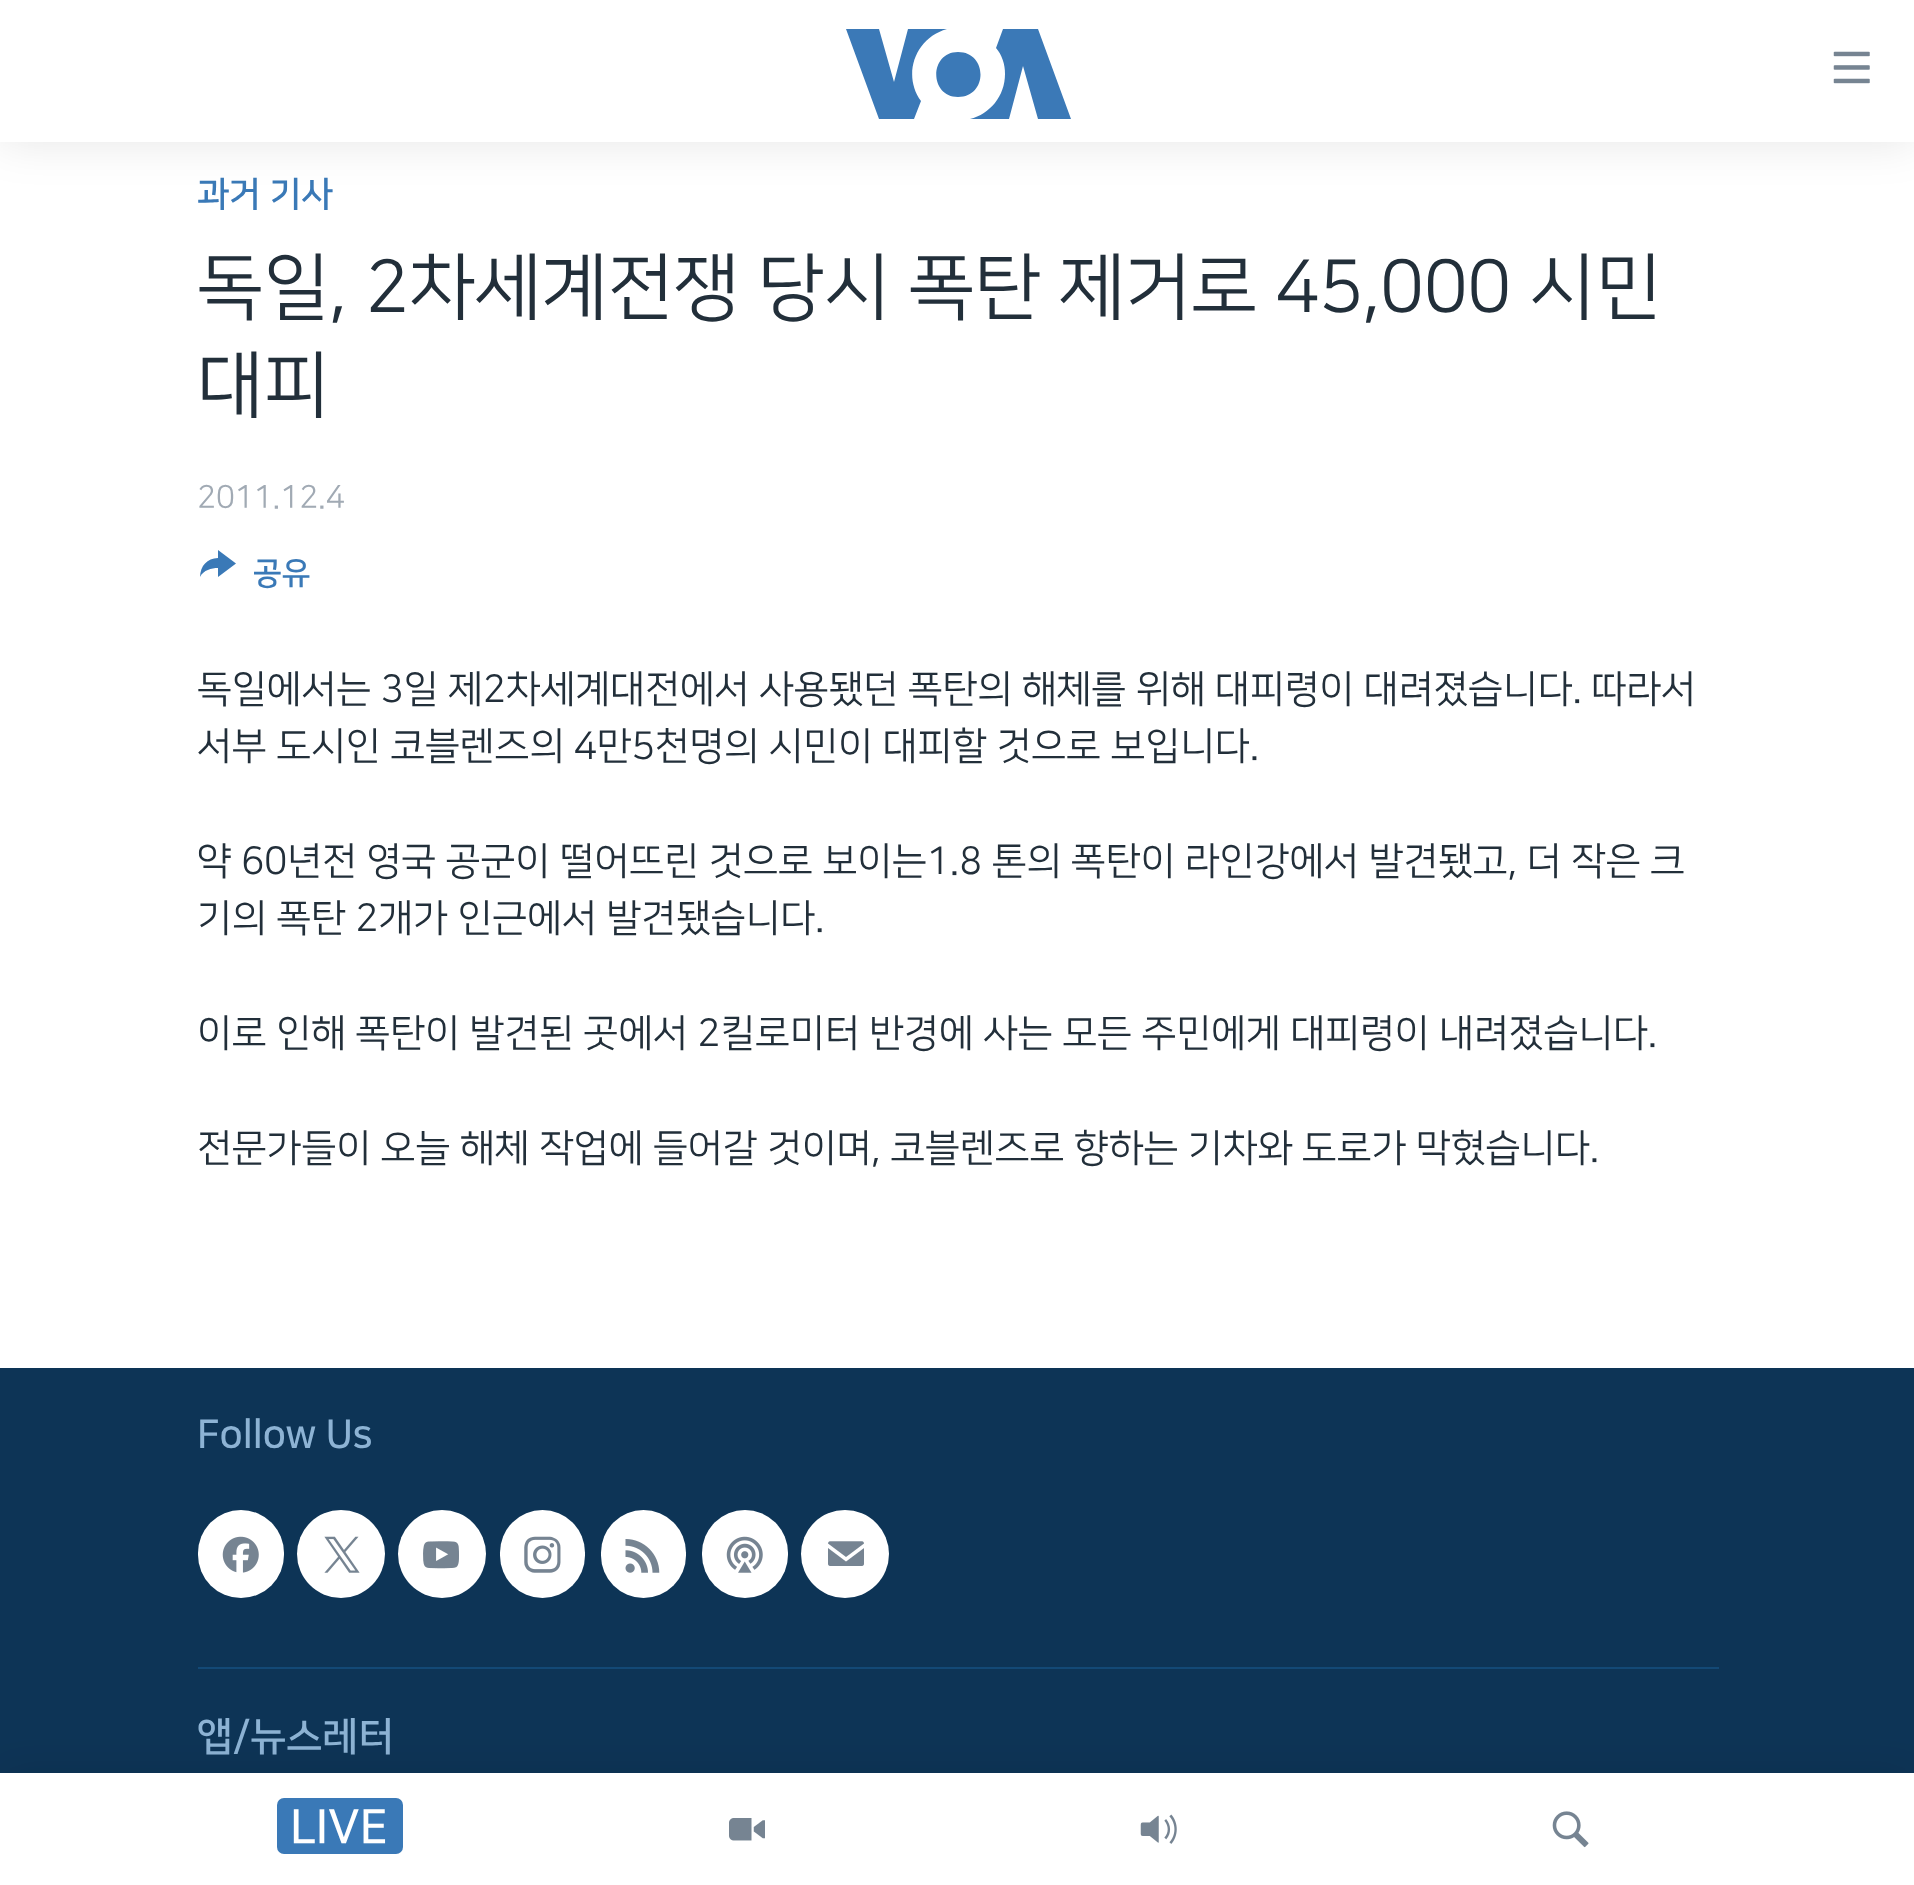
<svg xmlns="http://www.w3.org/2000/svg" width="1914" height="1885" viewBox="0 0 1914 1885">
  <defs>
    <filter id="blur1" x="-50%" y="-200%" width="200%" height="500%"><feGaussianBlur stdDeviation="22.5"/></filter>
  </defs>
  <rect width="100%" height="100%" fill="#ffffff"/>
  <text x="197" y="205" font-family="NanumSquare" font-size="35" font-weight="bold" fill="#3a79b7">과거 기사</text>
  <text x="197" y="310" font-family="NanumSquare" font-size="72.7" fill="#222f3a">독일, 2차세계전쟁 당시 폭탄 제거로 45,000 시민</text>
  <text x="197" y="408" font-family="NanumSquare" font-size="72.7" fill="#222f3a">대피</text>
  <text x="197" y="507" font-family="NanumSquare" font-size="31.5" fill="#a1aab4">2011.12.4</text>
  <path d="M200 577C200.5 565.5 207 558.5 218 558V550L236 563.5L218 577V568C211.5 568 203.5 570 200 577Z" fill="#3a79b7"/>
  <text x="253" y="583" font-family="NanumSquare" font-size="31.5" font-weight="bold" fill="#3a79b7">공유</text>
  <text x="197" y="701" font-family="NanumSquare" font-size="38.25" fill="#222f3a">독일에서는 3일 제2차세계대전에서 사용됐던 폭탄의 해체를 위해 대피령이 대려졌습니다. 따라서</text>
  <text x="197" y="758" font-family="NanumSquare" font-size="38.25" fill="#222f3a">서부 도시인 코블렌즈의 4만5천명의 시민이 대피할 것으로 보입니다.</text>
  <text x="197" y="873" font-family="NanumSquare" font-size="38.25" fill="#222f3a">약 60년전 영국 공군이 떨어뜨린 것으로 보이는1.8 톤의 폭탄이 라인강에서 발견됐고, 더 작은 크</text>
  <text x="197" y="930" font-family="NanumSquare" font-size="38.25" fill="#222f3a">기의 폭탄 2개가 인근에서 발견됐습니다.</text>
  <text x="197" y="1045" font-family="NanumSquare" font-size="38.25" fill="#222f3a">이로 인해 폭탄이 발견된 곳에서 2킬로미터 반경에 사는 모든 주민에게 대피령이 내려졌습니다.</text>
  <text x="197" y="1160" font-family="NanumSquare" font-size="38.25" fill="#222f3a">전문가들이 오늘 해체 작업에 들어갈 것이며, 코블렌즈로 향하는 기차와 도로가 막혔습니다.</text>
  <rect x="0" y="1368" width="1914" height="405" fill="#0d3456"/>
  <text x="197" y="1447" font-family="NanumSquare" font-size="39.5" font-weight="bold" fill="#8db3d4">Follow Us</text>
  <rect x="198" y="1510" width="86" height="88" rx="43" fill="#ffffff"/>
  <image x="222" y="1536" width="37" height="37" href="img1.png"/>
  <circle cx="341" cy="1554" r="44" fill="#ffffff"/>
  <image x="324" y="1536" width="36" height="37" href="img2.png"/>
  <circle cx="442" cy="1554" r="44" fill="#ffffff"/>
  <image x="423" y="1541" width="36" height="28" href="img3.png"/>
  <rect x="500" y="1510" width="85" height="88" rx="42.5" fill="#ffffff"/>
  <image x="524" y="1536" width="37" height="37" href="img4.png"/>
  <rect x="601" y="1510" width="85" height="88" rx="42.5" fill="#ffffff"/>
  <image x="625" y="1539" width="35" height="34" href="img5.png"/>
  <rect x="702" y="1510" width="86" height="88" rx="43" fill="#ffffff"/>
  <image x="726" y="1536" width="37" height="37" href="img6.png"/>
  <circle cx="845" cy="1554" r="44" fill="#ffffff"/>
  <image x="828" y="1541" width="36" height="25" href="img7.png"/>
  <rect x="198" y="1667" width="1521" height="2" fill="#134976"/>
  <text x="197" y="1749" font-family="NanumSquare" font-size="39.5" font-weight="bold" fill="#8db3d4">앱/뉴스레터</text>
  <rect x="0" y="0" width="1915" height="142" fill="#000000" fill-opacity="0.1" filter="url(#blur1)"/>
  <rect x="0" y="0" width="1914" height="142" fill="#ffffff"/>
  <path d="M921 101L914 119H879L846 29H879L894 82L908 29H947C915 38 902 75 921 101ZM958 52C929 52 929 97 958 97C988 97 988 52 958 52ZM1005 74C1005 96 990 114 970 119H1009L1023 66L1038 119H1071L1038 29H1003L996 48C1002 55 1005 64 1005 74Z" fill="#3b79b7"/>
  <image x="1833" y="51" width="37" height="33" href="img8.png"/>
  <rect x="0" y="1773" width="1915" height="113" fill="#000000" fill-opacity="0.1" filter="url(#blur1)"/>
  <rect x="0" y="1773" width="1914" height="112" fill="#ffffff"/>
  <rect x="277" y="1798" width="126" height="56" rx="7" fill="#3a79b7"/>
  <text x="290" y="1842" font-family="NanumSquare" font-size="47" font-weight="bold" fill="#ffffff">LIVE</text>
  <image x="729" y="1818" width="36" height="23" href="img9.png"/>
  <image x="1140" y="1814" width="37" height="30" href="img10.png"/>
  <image x="1552" y="1811" width="37" height="37" href="img11.png"/>
</svg>
